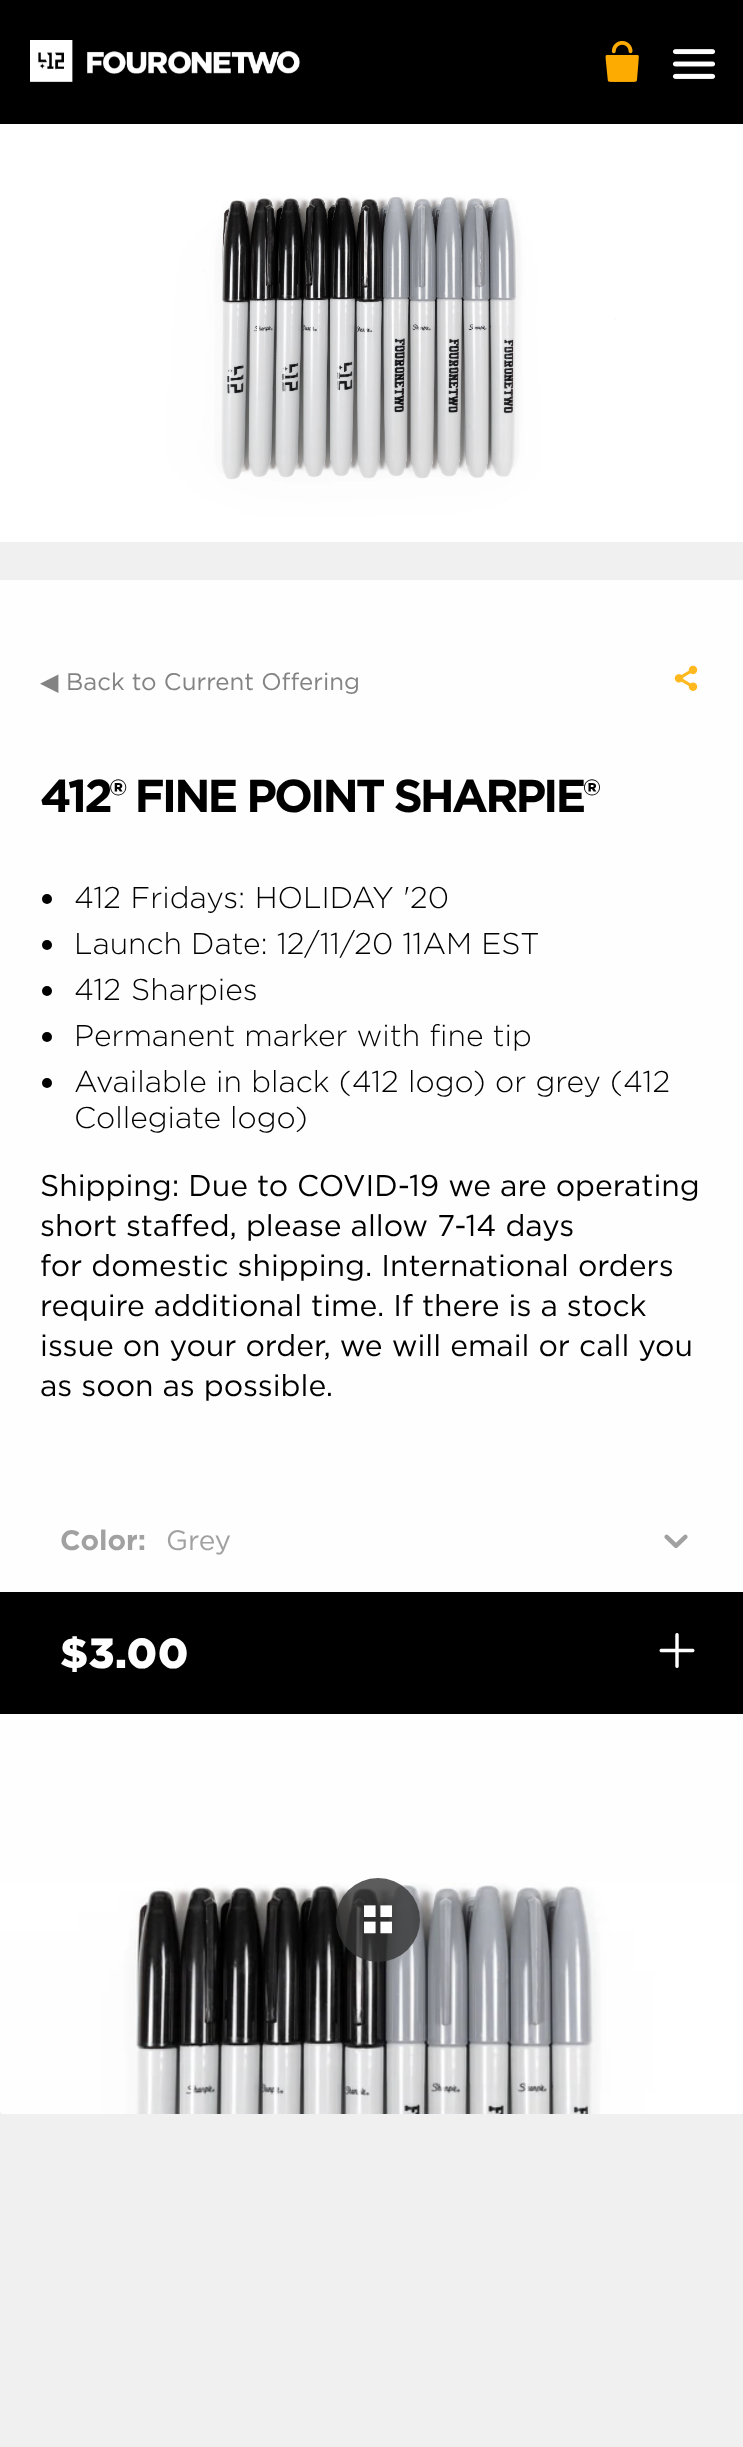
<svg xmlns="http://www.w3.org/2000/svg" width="743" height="2447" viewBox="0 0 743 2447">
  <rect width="100%" height="100%" fill="#f0f0f0"/>
  <rect x="0" y="0" width="743" height="124" fill="#000000"/>
  <image x="30" y="40" width="270" height="42" href="img1.png"/>
  <image x="605" y="40" width="34" height="42" href="img2.png"/>
  <image x="672" y="49" width="44" height="30" href="img3.png"/>
  <image x="0" y="124" width="743" height="418" href="img4.png"/>
  <rect x="0" y="580" width="743" height="1012" fill="#fefefe"/>
  <text x="40" y="690" font-family="DejaVu Sans" font-size="24" fill="#838383">◀</text>
  <text x="66" y="690" font-family="'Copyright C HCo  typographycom'" font-size="24" font-weight="300" fill="#838383">Back to Current Offering</text>
  <image x="674" y="665" width="24" height="26" href="img5.png"/>
  <text x="40" y="812" font-family="'Copyright C HCo  typographycom'" font-size="46" letter-spacing="-3" fill="#000000">412® FINE POINT SHARPIE®</text>
  <circle cx="47" cy="899" r="5" fill="#000000"/>
  <text x="74" y="908" word-spacing="0.5" font-family="'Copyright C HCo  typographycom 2'" font-size="30" font-weight="300" fill="#000000">412 Fridays: HOLIDAY '20</text>
  <circle cx="47" cy="945" r="5" fill="#000000"/>
  <text x="74" y="954" font-family="'Copyright C HCo  typographycom 2'" font-size="30" font-weight="300" fill="#000000">Launch Date: 12/11/20 11AM EST</text>
  <circle cx="47" cy="991" r="5" fill="#000000"/>
  <text x="74" y="1000" word-spacing="1" font-family="'Copyright C HCo  typographycom 2'" font-size="30" font-weight="300" fill="#000000">412 Sharpies</text>
  <circle cx="47" cy="1037" r="5" fill="#000000"/>
  <text x="74" y="1046" font-family="'Copyright C HCo  typographycom 2'" font-size="30" font-weight="300" fill="#000000">Permanent marker with fine tip</text>
  <circle cx="47" cy="1083" r="5" fill="#000000"/>
  <text x="74" y="1092" word-spacing="0.25" font-family="'Copyright C HCo  typographycom 2'" font-size="30" font-weight="300" fill="#000000">Available in black (412 logo) or grey (412</text>
  <text x="74" y="1128" font-family="'Copyright C HCo  typographycom 2'" font-size="30" font-weight="300" fill="#000000">Collegiate logo)</text>
  <text x="40" y="1196" font-family="'Copyright C HCo  typographycom'" font-size="30" font-weight="300" fill="#000000">Shipping: Due to COVID-19 we are operating</text>
  <text x="40" y="1236" font-family="'Copyright C HCo  typographycom'" font-size="30" font-weight="300" fill="#000000">short staffed, please allow 7-14 days</text>
  <text x="40" y="1276" font-family="'Copyright C HCo  typographycom'" font-size="30" font-weight="300" fill="#000000">for domestic shipping. International orders</text>
  <text x="40" y="1316" font-family="'Copyright C HCo  typographycom'" font-size="30" font-weight="300" fill="#000000">require additional time. If there is a stock</text>
  <text x="40" y="1356" font-family="'Copyright C HCo  typographycom'" font-size="30" font-weight="300" fill="#000000">issue on your order, we will email or call you</text>
  <text x="40" y="1396" font-family="'Copyright C HCo  typographycom'" font-size="30" font-weight="300" fill="#000000">as soon as possible.</text>
  <text x="60" y="1550" font-family="'Copyright C HCo  typographycom'" font-size="28" fill="#a1a1a1">Color:</text>
  <text x="166" y="1550" font-family="'Copyright C HCo  typographycom'" font-size="28" font-weight="300" fill="#a1a1a1">Grey</text>
  <image x="664" y="1534" width="24" height="15" href="img6.png"/>
  <rect x="0" y="1592" width="743" height="122" fill="#000000"/>
  <text x="60" y="1668" font-family="'Copyright C HCo  typographycom 2'" font-size="42" letter-spacing="0.5" fill="#ffffff">$3.00</text>
  <image x="659" y="1633" width="36" height="35" href="img7.png"/>
  <path d="M0 1714H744V2110C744 2112 742 2114 740 2114H4C2 2114 0 2112 0 2110Z" fill="#fefefe"/>
  <image x="0" y="1882" width="743" height="232" href="img9.png"/>
  <circle cx="378" cy="1920" r="42" fill="#333333" fill-opacity="0.8"/>
  <image x="364" y="1905" width="28" height="29" href="img8.png"/>
</svg>
